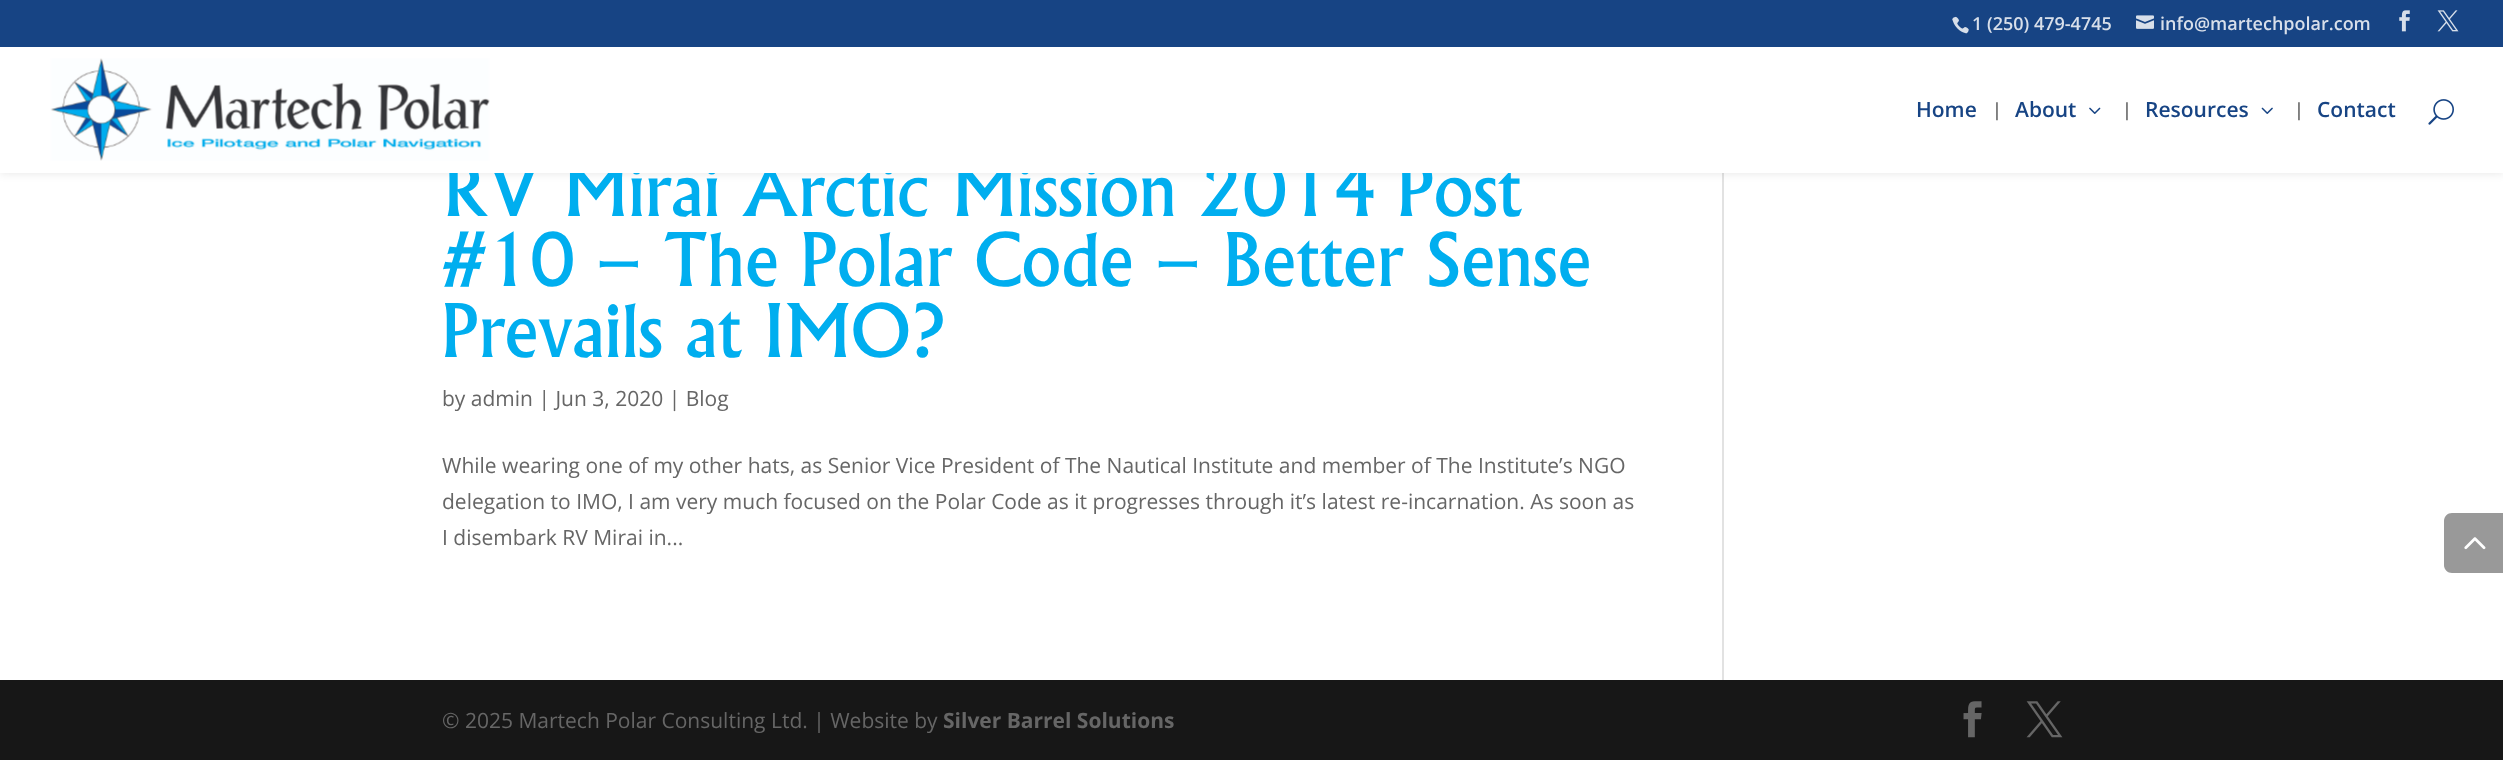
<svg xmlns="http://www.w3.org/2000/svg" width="2503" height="760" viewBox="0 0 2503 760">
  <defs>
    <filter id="blur1" x="-50%" y="-200%" width="200%" height="500%"><feGaussianBlur stdDeviation="5"/></filter>
  </defs>
  <rect width="100%" height="100%" fill="#ffffff"/>
  <rect x="1722" y="173" width="2" height="507" fill="#e2e2e2"/>
  <rect x="0" y="47" width="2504" height="126" fill="#000000" fill-opacity="0.1" filter="url(#blur1)"/>
  <rect x="0" y="0" width="2503" height="47" fill="#174484"/>
  <image x="1952" y="16" width="17" height="18" href="img1.png"/>
  <text x="1972" y="30" font-family="Open Sans" font-size="18" font-weight="600" fill="#d8dfea">1 (250) 479-4745</text>
  <image x="2136" y="15" width="18" height="14" href="img2.png"/>
  <text x="2160" y="30" font-family="Open Sans" font-size="18" font-weight="600" fill="#d8dfea">info@martechpolar.com</text>
  <image x="2399" y="10" width="11" height="22" href="img3.png"/>
  <image x="2437" y="10" width="22" height="22" href="img4.png"/>
  <text x="442" y="216" font-family="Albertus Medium" font-size="70.5" font-weight="500" fill="#00aeef">RV Mirai Arctic Mission 2014 Post</text>
  <rect x="0" y="47" width="2503" height="126" fill="#ffffff"/>
  <image x="50" y="58" width="440" height="103" href="img5.png"/>
  <text x="1916" y="117" font-family="Open Sans" font-size="21" font-weight="600" fill="#174484">Home</text>
  <text x="1992" y="116" font-family="Open Sans" font-size="18" font-weight="600" fill="#666666">|</text>
  <text x="2015" y="117" font-family="Open Sans" font-size="21" font-weight="600" fill="#174484">About</text>
  <image x="2089" y="107" width="12" height="7" href="img6.png"/>
  <text x="2122" y="116" font-family="Open Sans" font-size="18" font-weight="600" fill="#666666">|</text>
  <text x="2145" y="117" font-family="Open Sans" font-size="21" font-weight="600" fill="#174484">Resources</text>
  <image x="2261" y="107" width="12" height="7" href="img7.png"/>
  <text x="2294" y="116" font-family="Open Sans" font-size="18" font-weight="600" fill="#666666">|</text>
  <text x="2317" y="117" font-family="Open Sans" font-size="21" font-weight="600" fill="#174484">Contact</text>
  <image x="2428" y="99" width="26" height="26" href="img8.png"/>
  <text x="442" y="286" font-family="Albertus Medium" font-size="70.5" font-weight="500" fill="#00aeef">#10 – The Polar Code – Better Sense</text>
  <text x="442" y="357" font-family="Albertus Medium" font-size="70.5" font-weight="500" fill="#00aeef">Prevails at IMO?</text>
  <text x="442" y="406" font-family="Open Sans" font-size="21" fill="#666666">by admin | Jun 3, 2020 | Blog</text>
  <text x="442" y="473" font-family="Open Sans" font-size="21" fill="#666666">While wearing one of my other hats, as Senior Vice President of The Nautical Institute and member of The Institute’s NGO</text>
  <text x="442" y="509" font-family="Open Sans" font-size="21" fill="#666666">delegation to IMO, I am very much focused on the Polar Code as it progresses through it’s latest re-incarnation. As soon as</text>
  <text x="442" y="545" font-family="Open Sans" font-size="21" fill="#666666">I disembark RV Mirai in...</text>
  <path d="M2452 513H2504V573H2452C2447.5 573 2444 569.5 2444 565V521C2444 516.5 2447.5 513 2452 513Z" fill="#999999"/>
  <image x="2464" y="537" width="22" height="13" href="img9.png"/>
  <rect x="0" y="680" width="2503" height="80" fill="#171717"/>
  <text x="442" y="728" font-family="Open Sans" font-size="21" fill="#666666">© 2025 Martech Polar Consulting Ltd. | Website by</text>
  <text x="943" y="728" font-family="Open Sans" font-size="21" font-weight="bold" fill="#666666">Silver Barrel Solutions</text>
  <image x="1963" y="701" width="19" height="37" href="img10.png"/>
  <image x="2026" y="701" width="37" height="37" href="img11.png"/>
</svg>
